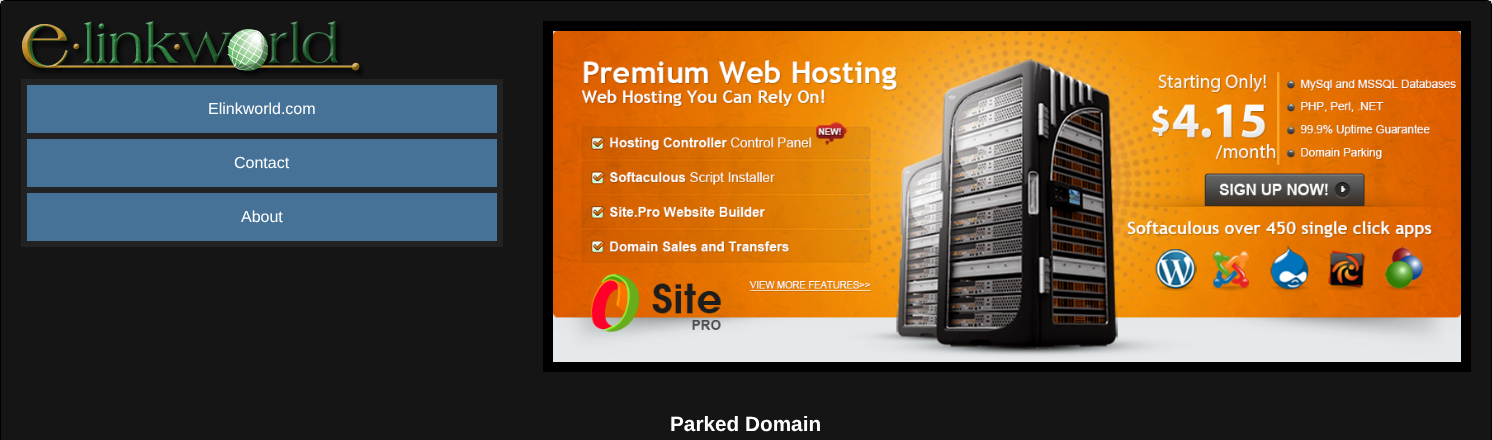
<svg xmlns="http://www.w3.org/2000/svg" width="1492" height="440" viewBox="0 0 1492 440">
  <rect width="100%" height="100%" fill="#e4e7e9"/>
  <rect x="0.5" y="0.5" width="1491" height="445" rx="4.5" fill="none" stroke="#000000"/>
  <rect x="1" y="1" width="1490" height="391" fill="#151515"/>
  <image x="22" y="21" width="342" height="56" href="img1.png"/>
  <rect x="21" y="79" width="482" height="168" fill="#222222"/>
  <rect x="27" y="85" width="470" height="48" fill="#457296"/>
  <text x="208" y="114" font-family="Liberation Sans" font-size="16" fill="#ffffff">Elinkworld.com</text>
  <rect x="27" y="139" width="470" height="48" fill="#457296"/>
  <text x="234" y="168" font-family="Liberation Sans" font-size="16" fill="#ffffff">Contact</text>
  <rect x="27" y="193" width="470" height="48" fill="#457296"/>
  <text x="241" y="222" font-family="Liberation Sans" font-size="16" fill="#ffffff">About</text>
  <rect x="543" y="21" width="928" height="351" fill="#000000"/>
  <image x="553" y="31" width="908" height="331" href="img2.png"/>
  <rect x="1" y="392" width="1490" height="48" fill="#151515"/>
  <text x="670" y="431" font-family="Liberation Sans" font-size="20.75" font-weight="bold" fill="#ffffff">Parked Domain</text>
</svg>
